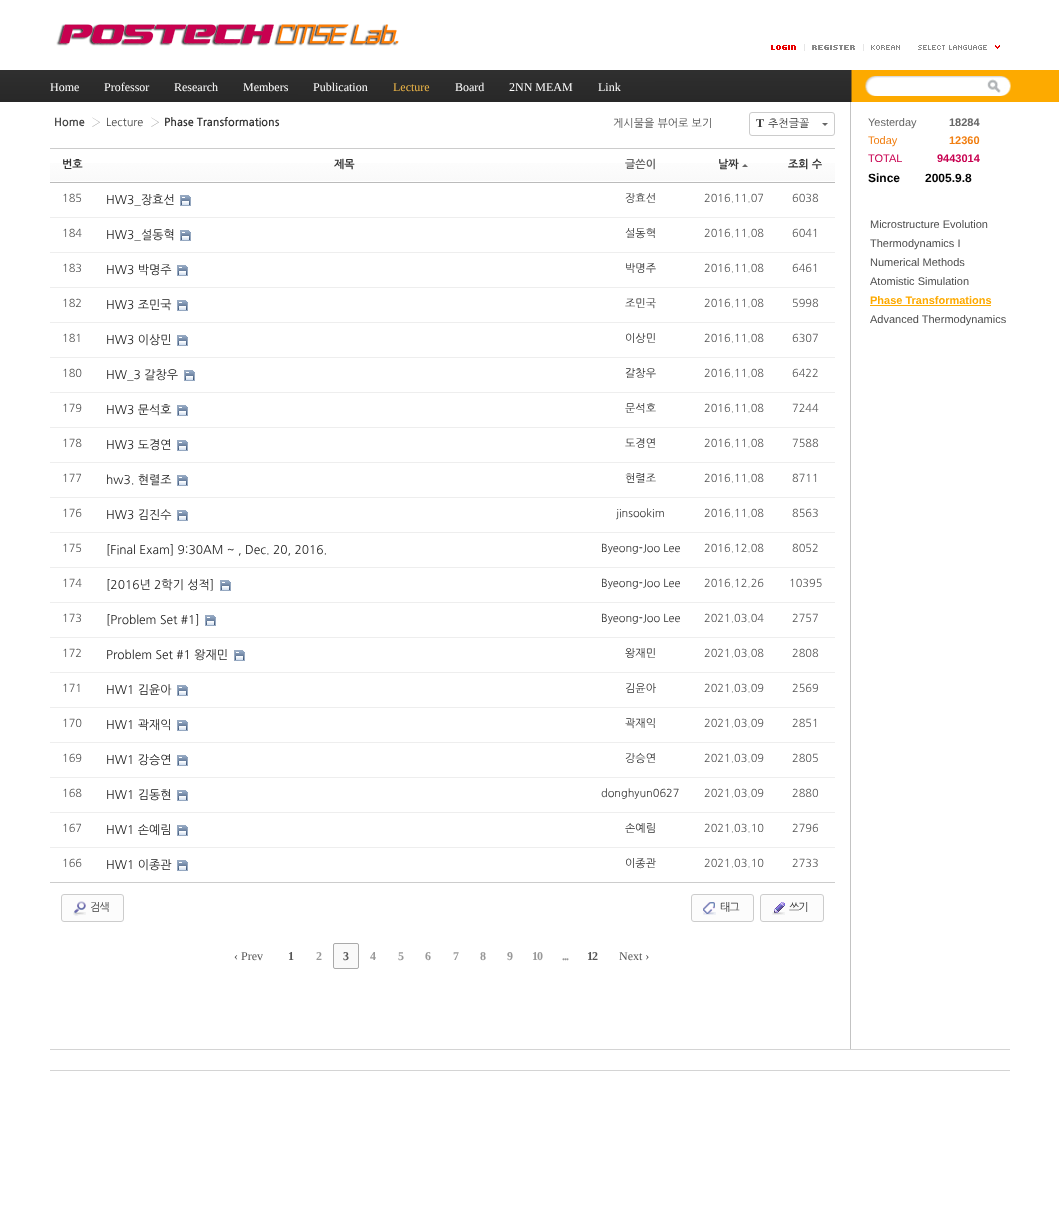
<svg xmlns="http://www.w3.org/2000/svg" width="1059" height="1216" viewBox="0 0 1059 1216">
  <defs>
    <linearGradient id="g1" gradientUnits="userSpaceOnUse" x1="443" y1="148" x2="443" y2="183"><stop offset="0" stop-color="#ffffff"/><stop offset="1" stop-color="#f9f9f9"/></linearGradient>
  </defs>
  <rect width="100%" height="100%" fill="#ffffff"/>
  <image x="0" y="70" width="1059" height="32" href="img1.png"/>
  <image x="56" y="24" width="343" height="22" href="img2.png"/>
  <image x="771" y="45" width="25" height="5" href="img3.png"/>
  <rect x="804" y="44" width="1" height="7" fill="#e6e6e6"/>
  <image x="812" y="45" width="43" height="5" href="img4.png"/>
  <rect x="863" y="44" width="1" height="7" fill="#e6e6e6"/>
  <image x="871" y="45" width="29" height="5" href="img5.png"/>
  <image x="918" y="45" width="69" height="5" href="img6.png"/>
  <image x="995" y="45" width="5" height="4" href="img7.png"/>
  <text x="50" y="91" font-family="Liberation Serif" font-size="12" fill="#ffffff">Home</text>
  <text x="104" y="91" font-family="Liberation Serif" font-size="12" fill="#ffffff">Professor</text>
  <text x="174" y="91" font-family="Liberation Serif" font-size="12" fill="#ffffff">Research</text>
  <text x="243" y="91" font-family="Liberation Serif" font-size="12" fill="#ffffff">Members</text>
  <text x="313" y="91" font-family="Liberation Serif" font-size="12" fill="#ffffff">Publication</text>
  <text x="393" y="91" font-family="Liberation Serif" font-size="12" fill="#f0b848">Lecture</text>
  <text x="455" y="91" font-family="Liberation Serif" font-size="12" fill="#ffffff">Board</text>
  <text x="509" y="91" font-family="Liberation Serif" font-size="12" fill="#ffffff">2NN MEAM</text>
  <text x="598" y="91" font-family="Liberation Serif" font-size="12" fill="#ffffff">Link</text>
  <image x="987" y="79" width="14" height="14" href="img8.png"/>
  <rect x="850" y="102" width="1" height="947" fill="#c3c3c3"/>
  <text x="54" y="126" font-family="NanumGothic" font-size="11" font-weight="bold" fill="#444444">Home</text>
  <text x="91" y="126" font-family="NanumGothic" font-size="11" fill="#999999">›</text>
  <text x="106" y="126" font-family="NanumGothic" font-size="11" fill="#444444">Lecture</text>
  <text x="150" y="126" font-family="NanumGothic" font-size="11" fill="#999999">›</text>
  <text x="164" y="126" font-family="NanumGothic" font-size="11" font-weight="bold" fill="#333333">Phase Transformations</text>
  <text x="613" y="127" font-family="NanumGothic" font-size="11" fill="#555555">게시물을 뷰어로 보기</text>
  <rect x="749.5" y="112.5" width="85" height="23" rx="2.5" fill="none" stroke="#cccccc"/>
  <text x="756" y="127" font-family="Liberation Serif" font-size="12" font-weight="bold" fill="#333333">T</text>
  <text x="768" y="127" font-family="NanumGothic" font-size="11" fill="#333333">추천글꼴</text>
  <path d="M822 123H828L825 126Z" fill="#666666"/>
  <rect x="50" y="163" width="785" height="18" fill="url(#g1)"/>
  <rect x="50" y="148" width="785" height="1" fill="#cccccc"/>
  <rect x="50" y="182" width="785" height="1" fill="#bbbbbb"/>
  <text x="62" y="168" font-family="NanumGothic" font-size="11" font-weight="bold" fill="#333333">번호</text>
  <text x="334" y="168" font-family="NanumGothic" font-size="11" font-weight="bold" fill="#333333">제목</text>
  <text x="625" y="168" font-family="NanumGothic" font-size="11" font-weight="bold" fill="#666666">글쓴이</text>
  <text x="718" y="168" font-family="NanumGothic" font-size="11" font-weight="bold" fill="#333333">날짜</text>
  <path d="M748 167H742L745 164Z" fill="#666666"/>
  <text x="788" y="168" font-family="NanumGothic" font-size="11" font-weight="bold" fill="#333333">조회 수</text>
  <rect x="50" y="217" width="785" height="1" fill="#eeeeee"/>
  <text x="62" y="202" font-family="NanumGothic" font-size="11" fill="#555555">185</text>
  <text x="106" y="204" font-family="NanumGothic" font-size="12" fill="#222222">HW3_장효선</text>
  <image x="180" y="195" width="11" height="11" href="img9.png"/>
  <text x="625" y="202" font-family="NanumGothic" font-size="11" fill="#333333">장효선</text>
  <text x="704" y="202" font-family="NanumGothic" font-size="11" fill="#555555">2016.11.07</text>
  <text x="792" y="202" font-family="NanumGothic" font-size="11" fill="#555555">6038</text>
  <rect x="50" y="252" width="785" height="1" fill="#eeeeee"/>
  <text x="62" y="237" font-family="NanumGothic" font-size="11" fill="#555555">184</text>
  <text x="106" y="239" font-family="NanumGothic" font-size="12" fill="#222222">HW3_설동혁</text>
  <image x="180" y="230" width="11" height="11" href="img9.png"/>
  <text x="625" y="237" font-family="NanumGothic" font-size="11" fill="#333333">설동혁</text>
  <text x="704" y="237" font-family="NanumGothic" font-size="11" fill="#555555">2016.11.08</text>
  <text x="792" y="237" font-family="NanumGothic" font-size="11" fill="#555555">6041</text>
  <rect x="50" y="287" width="785" height="1" fill="#eeeeee"/>
  <text x="62" y="272" font-family="NanumGothic" font-size="11" fill="#555555">183</text>
  <text x="106" y="274" font-family="NanumGothic" font-size="12" fill="#222222">HW3 박명주</text>
  <image x="177" y="265" width="11" height="11" href="img9.png"/>
  <text x="625" y="272" font-family="NanumGothic" font-size="11" fill="#333333">박명주</text>
  <text x="704" y="272" font-family="NanumGothic" font-size="11" fill="#555555">2016.11.08</text>
  <text x="792" y="272" font-family="NanumGothic" font-size="11" fill="#555555">6461</text>
  <rect x="50" y="322" width="785" height="1" fill="#eeeeee"/>
  <text x="62" y="307" font-family="NanumGothic" font-size="11" fill="#555555">182</text>
  <text x="106" y="309" font-family="NanumGothic" font-size="12" fill="#222222">HW3 조민국</text>
  <image x="177" y="300" width="11" height="11" href="img9.png"/>
  <text x="625" y="307" font-family="NanumGothic" font-size="11" fill="#333333">조민국</text>
  <text x="704" y="307" font-family="NanumGothic" font-size="11" fill="#555555">2016.11.08</text>
  <text x="792" y="307" font-family="NanumGothic" font-size="11" fill="#555555">5998</text>
  <rect x="50" y="357" width="785" height="1" fill="#eeeeee"/>
  <text x="62" y="342" font-family="NanumGothic" font-size="11" fill="#555555">181</text>
  <text x="106" y="344" font-family="NanumGothic" font-size="12" fill="#222222">HW3 이상민</text>
  <image x="177" y="335" width="11" height="11" href="img9.png"/>
  <text x="625" y="342" font-family="NanumGothic" font-size="11" fill="#333333">이상민</text>
  <text x="704" y="342" font-family="NanumGothic" font-size="11" fill="#555555">2016.11.08</text>
  <text x="792" y="342" font-family="NanumGothic" font-size="11" fill="#555555">6307</text>
  <rect x="50" y="392" width="785" height="1" fill="#eeeeee"/>
  <text x="62" y="377" font-family="NanumGothic" font-size="11" fill="#555555">180</text>
  <text x="106" y="379" font-family="NanumGothic" font-size="12" fill="#222222">HW_3 갈창우</text>
  <image x="184" y="370" width="11" height="11" href="img9.png"/>
  <text x="625" y="377" font-family="NanumGothic" font-size="11" fill="#333333">갈창우</text>
  <text x="704" y="377" font-family="NanumGothic" font-size="11" fill="#555555">2016.11.08</text>
  <text x="792" y="377" font-family="NanumGothic" font-size="11" fill="#555555">6422</text>
  <rect x="50" y="427" width="785" height="1" fill="#eeeeee"/>
  <text x="62" y="412" font-family="NanumGothic" font-size="11" fill="#555555">179</text>
  <text x="106" y="414" font-family="NanumGothic" font-size="12" fill="#222222">HW3 문석호</text>
  <image x="177" y="405" width="11" height="11" href="img9.png"/>
  <text x="625" y="412" font-family="NanumGothic" font-size="11" fill="#333333">문석호</text>
  <text x="704" y="412" font-family="NanumGothic" font-size="11" fill="#555555">2016.11.08</text>
  <text x="792" y="412" font-family="NanumGothic" font-size="11" fill="#555555">7244</text>
  <rect x="50" y="462" width="785" height="1" fill="#eeeeee"/>
  <text x="62" y="447" font-family="NanumGothic" font-size="11" fill="#555555">178</text>
  <text x="106" y="449" font-family="NanumGothic" font-size="12" fill="#222222">HW3 도경연</text>
  <image x="177" y="440" width="11" height="11" href="img9.png"/>
  <text x="625" y="447" font-family="NanumGothic" font-size="11" fill="#333333">도경연</text>
  <text x="704" y="447" font-family="NanumGothic" font-size="11" fill="#555555">2016.11.08</text>
  <text x="792" y="447" font-family="NanumGothic" font-size="11" fill="#555555">7588</text>
  <rect x="50" y="497" width="785" height="1" fill="#eeeeee"/>
  <text x="62" y="482" font-family="NanumGothic" font-size="11" fill="#555555">177</text>
  <text x="106" y="484" font-family="NanumGothic" font-size="12" fill="#222222">hw3. 현렬조</text>
  <image x="177" y="475" width="11" height="11" href="img9.png"/>
  <text x="625" y="482" font-family="NanumGothic" font-size="11" fill="#333333">현렬조</text>
  <text x="704" y="482" font-family="NanumGothic" font-size="11" fill="#555555">2016.11.08</text>
  <text x="792" y="482" font-family="NanumGothic" font-size="11" fill="#555555">8711</text>
  <rect x="50" y="532" width="785" height="1" fill="#eeeeee"/>
  <text x="62" y="517" font-family="NanumGothic" font-size="11" fill="#555555">176</text>
  <text x="106" y="519" font-family="NanumGothic" font-size="12" fill="#222222">HW3 김진수</text>
  <image x="177" y="510" width="11" height="11" href="img9.png"/>
  <text x="616" y="517" font-family="NanumGothic" font-size="11" fill="#333333">jinsookim</text>
  <text x="704" y="517" font-family="NanumGothic" font-size="11" fill="#555555">2016.11.08</text>
  <text x="792" y="517" font-family="NanumGothic" font-size="11" fill="#555555">8563</text>
  <rect x="50" y="567" width="785" height="1" fill="#eeeeee"/>
  <text x="62" y="552" font-family="NanumGothic" font-size="11" fill="#555555">175</text>
  <text x="106" y="554" font-family="NanumGothic" font-size="12" fill="#222222">[Final Exam] 9:30AM ~ , Dec. 20, 2016.</text>
  <text x="601" y="552" font-family="NanumGothic" font-size="11" fill="#333333">Byeong-Joo Lee</text>
  <text x="704" y="552" font-family="NanumGothic" font-size="11" fill="#555555">2016.12.08</text>
  <text x="792" y="552" font-family="NanumGothic" font-size="11" fill="#555555">8052</text>
  <rect x="50" y="602" width="785" height="1" fill="#eeeeee"/>
  <text x="62" y="587" font-family="NanumGothic" font-size="11" fill="#555555">174</text>
  <text x="106" y="589" font-family="NanumGothic" font-size="12" fill="#222222">[2016년 2학기 성적]</text>
  <image x="220" y="580" width="11" height="11" href="img9.png"/>
  <text x="601" y="587" font-family="NanumGothic" font-size="11" fill="#333333">Byeong-Joo Lee</text>
  <text x="704" y="587" font-family="NanumGothic" font-size="11" fill="#555555">2016.12.26</text>
  <text x="789" y="587" font-family="NanumGothic" font-size="11" fill="#555555">10395</text>
  <rect x="50" y="637" width="785" height="1" fill="#eeeeee"/>
  <text x="62" y="622" font-family="NanumGothic" font-size="11" fill="#555555">173</text>
  <text x="106" y="624" font-family="NanumGothic" font-size="12" fill="#222222">[Problem Set #1]</text>
  <image x="205" y="615" width="11" height="11" href="img9.png"/>
  <text x="601" y="622" font-family="NanumGothic" font-size="11" fill="#333333">Byeong-Joo Lee</text>
  <text x="704" y="622" font-family="NanumGothic" font-size="11" fill="#555555">2021.03.04</text>
  <text x="792" y="622" font-family="NanumGothic" font-size="11" fill="#555555">2757</text>
  <rect x="50" y="672" width="785" height="1" fill="#eeeeee"/>
  <text x="62" y="657" font-family="NanumGothic" font-size="11" fill="#555555">172</text>
  <text x="106" y="659" font-family="NanumGothic" font-size="12" fill="#222222">Problem Set #1 왕재민</text>
  <image x="234" y="650" width="11" height="11" href="img9.png"/>
  <text x="625" y="657" font-family="NanumGothic" font-size="11" fill="#333333">왕재민</text>
  <text x="704" y="657" font-family="NanumGothic" font-size="11" fill="#555555">2021.03.08</text>
  <text x="792" y="657" font-family="NanumGothic" font-size="11" fill="#555555">2808</text>
  <rect x="50" y="707" width="785" height="1" fill="#eeeeee"/>
  <text x="62" y="692" font-family="NanumGothic" font-size="11" fill="#555555">171</text>
  <text x="106" y="694" font-family="NanumGothic" font-size="12" fill="#222222">HW1 김윤아</text>
  <image x="177" y="685" width="11" height="11" href="img9.png"/>
  <text x="625" y="692" font-family="NanumGothic" font-size="11" fill="#333333">김윤아</text>
  <text x="704" y="692" font-family="NanumGothic" font-size="11" fill="#555555">2021.03.09</text>
  <text x="792" y="692" font-family="NanumGothic" font-size="11" fill="#555555">2569</text>
  <rect x="50" y="742" width="785" height="1" fill="#eeeeee"/>
  <text x="62" y="727" font-family="NanumGothic" font-size="11" fill="#555555">170</text>
  <text x="106" y="729" font-family="NanumGothic" font-size="12" fill="#222222">HW1 곽재익</text>
  <image x="177" y="720" width="11" height="11" href="img9.png"/>
  <text x="625" y="727" font-family="NanumGothic" font-size="11" fill="#333333">곽재익</text>
  <text x="704" y="727" font-family="NanumGothic" font-size="11" fill="#555555">2021.03.09</text>
  <text x="792" y="727" font-family="NanumGothic" font-size="11" fill="#555555">2851</text>
  <rect x="50" y="777" width="785" height="1" fill="#eeeeee"/>
  <text x="62" y="762" font-family="NanumGothic" font-size="11" fill="#555555">169</text>
  <text x="106" y="764" font-family="NanumGothic" font-size="12" fill="#222222">HW1 강승연</text>
  <image x="177" y="755" width="11" height="11" href="img9.png"/>
  <text x="625" y="762" font-family="NanumGothic" font-size="11" fill="#333333">강승연</text>
  <text x="704" y="762" font-family="NanumGothic" font-size="11" fill="#555555">2021.03.09</text>
  <text x="792" y="762" font-family="NanumGothic" font-size="11" fill="#555555">2805</text>
  <rect x="50" y="812" width="785" height="1" fill="#eeeeee"/>
  <text x="62" y="797" font-family="NanumGothic" font-size="11" fill="#555555">168</text>
  <text x="106" y="799" font-family="NanumGothic" font-size="12" fill="#222222">HW1 김동현</text>
  <image x="177" y="790" width="11" height="11" href="img9.png"/>
  <text x="601" y="797" font-family="NanumGothic" font-size="11" fill="#333333">donghyun0627</text>
  <text x="704" y="797" font-family="NanumGothic" font-size="11" fill="#555555">2021.03.09</text>
  <text x="792" y="797" font-family="NanumGothic" font-size="11" fill="#555555">2880</text>
  <rect x="50" y="847" width="785" height="1" fill="#eeeeee"/>
  <text x="62" y="832" font-family="NanumGothic" font-size="11" fill="#555555">167</text>
  <text x="106" y="834" font-family="NanumGothic" font-size="12" fill="#222222">HW1 손예림</text>
  <image x="177" y="825" width="11" height="11" href="img9.png"/>
  <text x="625" y="832" font-family="NanumGothic" font-size="11" fill="#333333">손예림</text>
  <text x="704" y="832" font-family="NanumGothic" font-size="11" fill="#555555">2021.03.10</text>
  <text x="792" y="832" font-family="NanumGothic" font-size="11" fill="#555555">2796</text>
  <text x="62" y="867" font-family="NanumGothic" font-size="11" fill="#555555">166</text>
  <text x="106" y="869" font-family="NanumGothic" font-size="12" fill="#222222">HW1 이종관</text>
  <image x="177" y="860" width="11" height="11" href="img9.png"/>
  <text x="625" y="867" font-family="NanumGothic" font-size="11" fill="#333333">이종관</text>
  <text x="704" y="867" font-family="NanumGothic" font-size="11" fill="#555555">2021.03.10</text>
  <text x="792" y="867" font-family="NanumGothic" font-size="11" fill="#555555">2733</text>
  <rect x="50" y="882" width="785" height="1" fill="#cccccc"/>
  <rect x="61.5" y="894.5" width="62" height="27" rx="2.5" fill="#fcfcfc" stroke="#cccccc"/>
  <image x="73" y="901" width="13" height="15" href="img10.png"/>
  <text x="90" y="911" font-family="NanumGothic" font-size="11" letter-spacing="-1" fill="#444444">검색</text>
  <rect x="691.5" y="894.5" width="62" height="27" rx="2.5" fill="#fcfcfc" stroke="#cccccc"/>
  <image x="703" y="902" width="13" height="13" href="img11.png"/>
  <text x="720" y="911" font-family="NanumGothic" font-size="11" letter-spacing="-1" fill="#333333">태그</text>
  <rect x="760.5" y="894.5" width="63" height="27" rx="2.5" fill="#fcfcfc" stroke="#cccccc"/>
  <image x="772" y="902" width="13" height="13" href="img12.png"/>
  <text x="789" y="911" font-family="NanumGothic" font-size="11" letter-spacing="-1" fill="#333333">쓰기</text>
  <text x="234" y="960" font-family="Liberation Serif" font-size="12" fill="#555555">‹ Prev</text>
  <text x="288" y="960" font-family="Liberation Serif" font-size="12" font-weight="bold" letter-spacing="-1" fill="#555555">1</text>
  <text x="316" y="960" font-family="Liberation Serif" font-size="12" font-weight="bold" letter-spacing="-1" fill="#999999">2</text>
  <rect x="333.5" y="943.5" width="25" height="25" rx="1.5" fill="#f9f9f9" stroke="#aaaaaa"/>
  <text x="343" y="960" font-family="Liberation Serif" font-size="12" font-weight="bold" letter-spacing="-1" fill="#555555">3</text>
  <text x="370" y="960" font-family="Liberation Serif" font-size="12" font-weight="bold" letter-spacing="-1" fill="#999999">4</text>
  <text x="398" y="960" font-family="Liberation Serif" font-size="12" font-weight="bold" letter-spacing="-1" fill="#999999">5</text>
  <text x="425" y="960" font-family="Liberation Serif" font-size="12" font-weight="bold" letter-spacing="-1" fill="#999999">6</text>
  <text x="453" y="960" font-family="Liberation Serif" font-size="12" font-weight="bold" letter-spacing="-1" fill="#999999">7</text>
  <text x="480" y="960" font-family="Liberation Serif" font-size="12" font-weight="bold" letter-spacing="-1" fill="#999999">8</text>
  <text x="507" y="960" font-family="Liberation Serif" font-size="12" font-weight="bold" letter-spacing="-1" fill="#999999">9</text>
  <text x="532" y="960" font-family="Liberation Serif" font-size="12" font-weight="bold" letter-spacing="-1" fill="#999999">10</text>
  <text x="562" y="960" font-family="Liberation Serif" font-size="12" font-weight="bold" letter-spacing="-1" fill="#999999">...</text>
  <text x="587" y="960" font-family="Liberation Serif" font-size="12" font-weight="bold" letter-spacing="-1" fill="#555555">12</text>
  <text x="619" y="960" font-family="Liberation Serif" font-size="12" fill="#555555">Next ›</text>
  <text x="868" y="126" font-family="Liberation Sans" font-size="11" fill="#666666">Yesterday</text>
  <text x="949" y="126" font-family="Liberation Sans" font-size="11" font-weight="bold" fill="#666666">18284</text>
  <text x="868" y="144" font-family="Liberation Sans" font-size="11" fill="#f17e10">Today</text>
  <text x="949" y="144" font-family="Liberation Sans" font-size="11" font-weight="bold" fill="#f17e10">12360</text>
  <text x="868" y="162" font-family="Liberation Sans" font-size="11" fill="#c80050">TOTAL</text>
  <text x="937" y="162" font-family="Liberation Sans" font-size="11" font-weight="bold" fill="#c80050">9443014</text>
  <text x="868" y="182" font-family="Liberation Sans" font-size="12" font-weight="bold" fill="#000000">Since</text>
  <text x="925" y="182" font-family="Liberation Sans" font-size="12" font-weight="bold" fill="#000000">2005.9.8</text>
  <text x="870" y="228" font-family="Liberation Sans" font-size="11" fill="#4d4d4d">Microstructure Evolution</text>
  <text x="870" y="247" font-family="Liberation Sans" font-size="11" fill="#4d4d4d">Thermodynamics I</text>
  <text x="870" y="266" font-family="Liberation Sans" font-size="11" fill="#4d4d4d">Numerical Methods</text>
  <text x="870" y="285" font-family="Liberation Sans" font-size="11" fill="#4d4d4d">Atomistic Simulation</text>
  <text x="870" y="304" font-family="Liberation Sans" font-size="11" font-weight="bold" fill="#fdaa00">Phase Transformations</text>
  <rect x="870" y="305" width="121" height="1" fill="#fdaa00"/>
  <text x="870" y="323" font-family="Liberation Sans" font-size="11" fill="#4d4d4d">Advanced Thermodynamics</text>
  <rect x="50" y="1049" width="960" height="1" fill="#d4d4d4"/>
  <rect x="50" y="1070" width="960" height="1" fill="#d4d4d4"/>
</svg>
